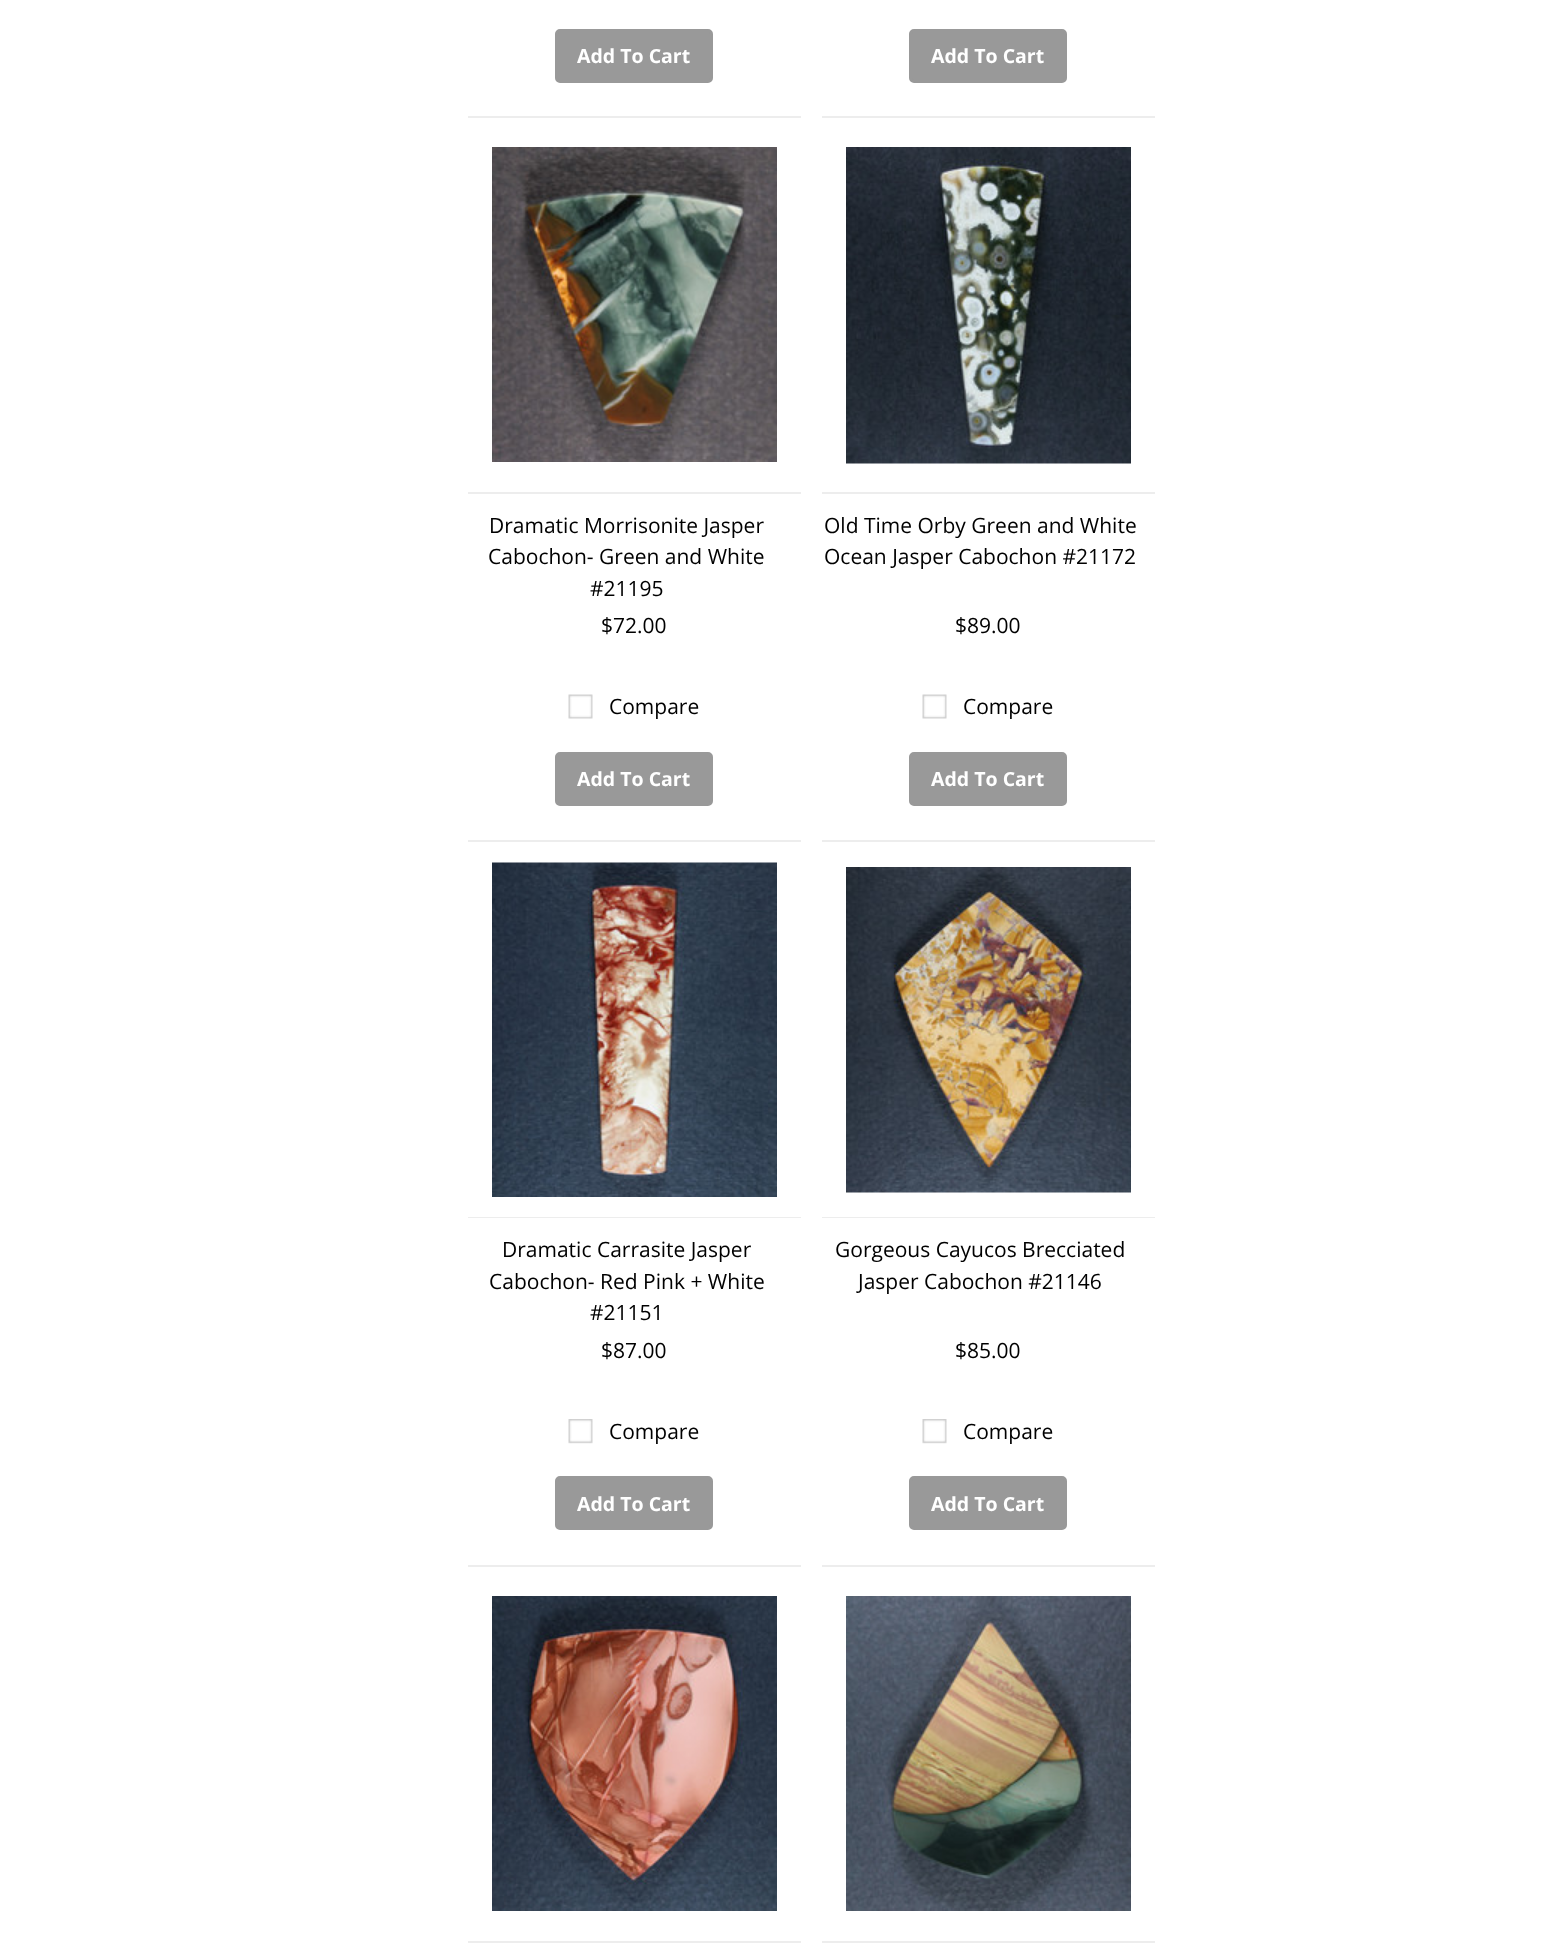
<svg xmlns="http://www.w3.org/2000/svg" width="1548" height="1958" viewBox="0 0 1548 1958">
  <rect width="100%" height="100%" fill="#ffffff"/>
  <rect x="556.5" y="30.5" width="155" height="51" rx="3.5" fill="#999999" stroke="#999999" stroke-width="3"/>
  <text x="577" y="63" font-family="Open Sans" font-size="19.5" font-weight="bold" fill="#ffffff">Add To Cart</text>
  <rect x="910.5" y="30.5" width="155" height="51" rx="3.5" fill="#999999" stroke="#999999" stroke-width="3"/>
  <text x="931" y="63" font-family="Open Sans" font-size="19.5" font-weight="bold" fill="#ffffff">Add To Cart</text>
  <rect x="468" y="116" width="333" height="2" fill="#ededed"/>
  <rect x="468" y="492" width="333" height="2" fill="#ededed"/>
  <image x="492" y="147" width="285" height="315" href="img1.png"/>
  <text x="489" y="533" font-family="Open Sans" font-size="21" fill="#000000">Dramatic Morrisonite Jasper</text>
  <text x="488" y="564" font-family="Open Sans" font-size="21" fill="#000000">Cabochon- Green and White</text>
  <text x="590" y="596" font-family="Open Sans" font-size="21" fill="#000000">#21195</text>
  <text x="601" y="633" font-family="Open Sans" font-size="21" fill="#000000">$72.00</text>
  <image x="568" y="694" width="25" height="25" href="img2.png"/>
  <text x="609" y="714" font-family="Open Sans" font-size="21" fill="#000000">Compare</text>
  <rect x="556.5" y="753.5" width="155" height="51" rx="3.5" fill="#999999" stroke="#999999" stroke-width="3"/>
  <text x="577" y="786" font-family="Open Sans" font-size="19.5" font-weight="bold" fill="#ffffff">Add To Cart</text>
  <rect x="822" y="116" width="333" height="2" fill="#ededed"/>
  <rect x="822" y="492" width="333" height="2" fill="#ededed"/>
  <image x="846" y="147" width="285" height="317" href="img3.png"/>
  <text x="824" y="533" font-family="Open Sans" font-size="21" fill="#000000">Old Time Orby Green and White</text>
  <text x="824" y="564" font-family="Open Sans" font-size="21" fill="#000000">Ocean Jasper Cabochon #21172</text>
  <text x="955" y="633" font-family="Open Sans" font-size="21" fill="#000000">$89.00</text>
  <image x="922" y="694" width="25" height="25" href="img4.png"/>
  <text x="963" y="714" font-family="Open Sans" font-size="21" fill="#000000">Compare</text>
  <rect x="910.5" y="753.5" width="155" height="51" rx="3.5" fill="#999999" stroke="#999999" stroke-width="3"/>
  <text x="931" y="786" font-family="Open Sans" font-size="19.5" font-weight="bold" fill="#ffffff">Add To Cart</text>
  <rect x="468" y="840" width="333" height="2" fill="#ededed"/>
  <rect x="468" y="1217" width="333" height="1" fill="#ededed"/>
  <image x="492" y="862" width="285" height="335" href="img5.png"/>
  <text x="502" y="1257" font-family="Open Sans" font-size="21" fill="#000000">Dramatic Carrasite Jasper</text>
  <text x="489" y="1289" font-family="Open Sans" font-size="21" fill="#000000">Cabochon- Red Pink + White</text>
  <text x="590" y="1320" font-family="Open Sans" font-size="21" fill="#000000">#21151</text>
  <text x="601" y="1358" font-family="Open Sans" font-size="21" fill="#000000">$87.00</text>
  <image x="568" y="1419" width="25" height="25" href="img6.png"/>
  <text x="609" y="1439" font-family="Open Sans" font-size="21" fill="#000000">Compare</text>
  <rect x="556.5" y="1477.5" width="155" height="51" rx="3.5" fill="#999999" stroke="#999999" stroke-width="3"/>
  <text x="577" y="1511" font-family="Open Sans" font-size="19.5" font-weight="bold" fill="#ffffff">Add To Cart</text>
  <rect x="822" y="840" width="333" height="2" fill="#ededed"/>
  <rect x="822" y="1217" width="333" height="1" fill="#ededed"/>
  <image x="846" y="867" width="285" height="326" href="img7.png"/>
  <text x="835" y="1257" font-family="Open Sans" font-size="21" fill="#000000">Gorgeous Cayucos Brecciated</text>
  <text x="858" y="1289" font-family="Open Sans" font-size="21" fill="#000000">Jasper Cabochon #21146</text>
  <text x="955" y="1358" font-family="Open Sans" font-size="21" fill="#000000">$85.00</text>
  <image x="922" y="1419" width="25" height="25" href="img8.png"/>
  <text x="963" y="1439" font-family="Open Sans" font-size="21" fill="#000000">Compare</text>
  <rect x="910.5" y="1477.5" width="155" height="51" rx="3.5" fill="#999999" stroke="#999999" stroke-width="3"/>
  <text x="931" y="1511" font-family="Open Sans" font-size="19.5" font-weight="bold" fill="#ffffff">Add To Cart</text>
  <rect x="468" y="1565" width="333" height="2" fill="#ededed"/>
  <rect x="468" y="1941" width="333" height="2" fill="#ededed"/>
  <image x="492" y="1596" width="285" height="315" href="img9.png"/>
  <rect x="822" y="1565" width="333" height="2" fill="#ededed"/>
  <rect x="822" y="1941" width="333" height="2" fill="#ededed"/>
  <image x="846" y="1596" width="285" height="315" href="img10.png"/>
</svg>
